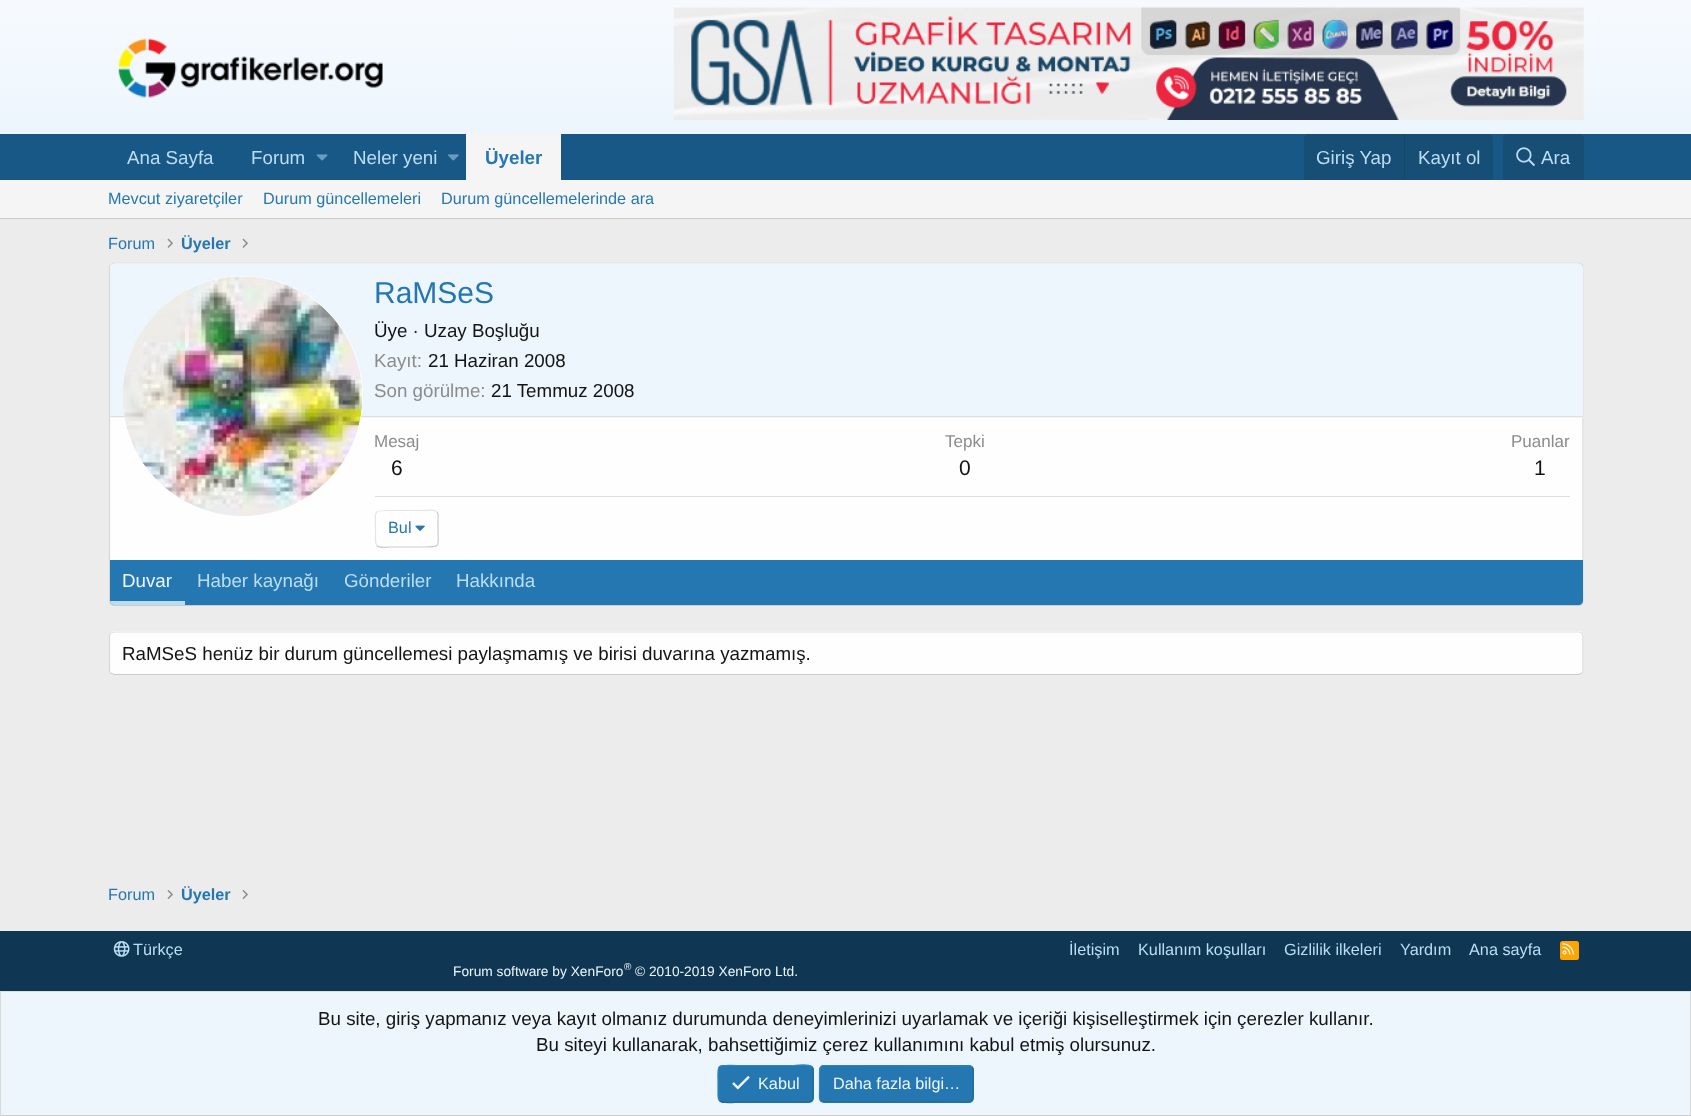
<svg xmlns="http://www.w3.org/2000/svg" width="1691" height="1116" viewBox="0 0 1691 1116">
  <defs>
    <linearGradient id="g1" gradientUnits="userSpaceOnUse" x1="846" y1="134" x2="846" y2="0"><stop offset="0" stop-color="#edf6fd"/><stop offset="1" stop-color="#f6fafe"/></linearGradient>
  </defs>
  <rect width="100%" height="100%" fill="#ececec"/>
  <rect x="0" y="0" width="1691" height="134" fill="url(#g1)"/>
  <image x="118" y="38" width="265" height="60" href="img1.png"/>
  <image x="673" y="7" width="911" height="113" href="img2.png"/>
  <rect x="0" y="134" width="1691" height="46" fill="#185886"/>
  <text x="127" y="164" font-family="Liberation Sans" font-size="18.75" fill="#bcdef5">Ana Sayfa</text>
  <text x="251" y="164" font-family="Liberation Sans" font-size="18.75" fill="#bcdef5">Forum</text>
  <image x="316" y="154" width="12" height="7" href="img3.png"/>
  <text x="353" y="164" font-family="Liberation Sans" font-size="18.75" fill="#bcdef5">Neler yeni</text>
  <image x="448" y="154" width="11" height="7" href="img4.png"/>
  <rect x="466" y="134" width="95" height="46" fill="#f5f5f5"/>
  <text x="485" y="164" font-family="Liberation Sans" font-size="18.75" font-weight="bold" fill="#2577b1">Üyeler</text>
  <path d="M1309 134H1488C1491 134 1493 136 1493 139V180H1304V139C1304 136 1306 134 1309 134Z" fill="#174e75"/>
  <text x="1316" y="164" font-family="Liberation Sans" font-size="18.75" fill="#bcdef5">Giriş Yap</text>
  <rect x="1404" y="134" width="1" height="46" fill="#174566"/>
  <text x="1418" y="164" font-family="Liberation Sans" font-size="18.75" fill="#bcdef5">Kayıt ol</text>
  <path d="M1508 134H1579C1582 134 1584 136 1584 139V180H1503V139C1503 136 1505 134 1508 134Z" fill="#174e75"/>
  <image x="1516" y="147" width="19" height="19" href="img5.png"/>
  <text x="1541" y="164" font-family="Liberation Sans" font-size="18.75" fill="#bcdef5">Ara</text>
  <rect x="0" y="180" width="1691" height="38" fill="#f5f5f5"/>
  <rect x="0" y="218" width="1691" height="1" fill="#cbcbcb"/>
  <text x="108" y="204" font-family="Liberation Sans" font-size="16.25" fill="#2577b1">Mevcut ziyaretçiler</text>
  <text x="263" y="204" font-family="Liberation Sans" font-size="16.25" fill="#2577b1">Durum güncellemeleri</text>
  <text x="441" y="204" font-family="Liberation Sans" font-size="16.25" fill="#2577b1">Durum güncellemelerinde ara</text>
  <text x="108" y="249" font-family="Liberation Sans" font-size="16.25" fill="#2577b1">Forum</text>
  <image x="167" y="238" width="6" height="10" href="img6.png"/>
  <text x="181" y="249" font-family="Liberation Sans" font-size="16.25" font-weight="bold" fill="#2577b1">Üyeler</text>
  <image x="242" y="238" width="6" height="10" href="img6.png"/>
  <rect x="109" y="263" width="1475" height="343" rx="5" fill="#fefefe"/>
  <path d="M110.5 264.5L114 263H1579L1582 264.5" fill="none" stroke="#dfdfdf" stroke-width="1.2"/>
  <path d="M1582 264.5C1582.5 265 1583 266.5 1583 267.5V601C1583 602.5 1582.5 603.5 1582 604.5" fill="none" stroke="#d8d8d8" stroke-width="1.2"/>
  <path d="M1582 604.5L1579 605.5H114L110.5 604.5" fill="none" stroke="#cbcbcb" stroke-width="1.2"/>
  <path d="M110.5 604.5C110 603.5 109.5 602.5 109.5 601V267.5C109.5 266.5 110 265 110.5 264.5" fill="none" stroke="#d8d8d8" stroke-width="1.2"/>
  <path d="M114 264H1579C1581 264 1583 266 1583 268V418H110V268C110 266 112 264 114 264Z" fill="#edf6fd"/>
  <rect x="110" y="416" width="1473" height="1" fill="#dfdfdf"/>
  <circle cx="243" cy="396" r="120" fill="#fefefe"/>
  <image x="123" y="276" width="240" height="240" href="img7.png"/>
  <text x="374" y="303" font-family="Liberation Sans" font-size="30" fill="#2577b1">RaMSeS</text>
  <text x="374" y="337" font-family="Liberation Sans" font-size="18.75" fill="#141414">Üye · Uzay Boşluğu</text>
  <text x="374" y="367" font-family="Liberation Sans" font-size="18.75" fill="#8c8c8c">Kayıt:</text>
  <text x="428" y="367" font-family="Liberation Sans" font-size="18.75" fill="#141414">21 Haziran 2008</text>
  <text x="374" y="397" font-family="Liberation Sans" font-size="18.75" fill="#8c8c8c">Son görülme:</text>
  <text x="491" y="397" font-family="Liberation Sans" font-size="18.75" fill="#141414">21 Temmuz 2008</text>
  <text x="374" y="447" font-family="Liberation Sans" font-size="17" fill="#8c8c8c">Mesaj</text>
  <text x="391" y="475" font-family="Liberation Sans" font-size="21" fill="#141414">6</text>
  <text x="945" y="447" font-family="Liberation Sans" font-size="17" fill="#8c8c8c">Tepki</text>
  <text x="959" y="475" font-family="Liberation Sans" font-size="21" fill="#141414">0</text>
  <text x="1511" y="447" font-family="Liberation Sans" font-size="17" fill="#8c8c8c">Puanlar</text>
  <text x="1534" y="475" font-family="Liberation Sans" font-size="21" fill="#141414">1</text>
  <rect x="375" y="496" width="1195" height="1" fill="#dfdfdf"/>
  <path d="M437 512C439 514 438 517 438 519.5V529C438 546.5 441.5 547 425 547H389C387 547 379.5 548.5 377 545.5" fill="none" stroke="#cbcbcb" stroke-width="1.2"/>
  <path d="M377 545.5C375 543.5 375.5 540.5 375.5 538V529C375.5 511 372 510.5 389 510.5H425C426.5 510.5 434 509 437 512" fill="none" stroke="#e5e5e5" stroke-width="1.2"/>
  <text x="388" y="533" font-family="Liberation Sans" font-size="16.25" fill="#2577b1">Bul</text>
  <image x="415" y="525" width="10" height="6" href="img8.png"/>
  <path d="M110 560H1583V601C1583 603 1581 605 1579 605H114C112 605 110 603 110 601Z" fill="#2577b1"/>
  <path d="M110 601H185V605H114C112 605 110 603 110 601Z" fill="#bcdef5"/>
  <text x="122" y="587" font-family="Liberation Sans" font-size="18.75" fill="#edf6fd">Duvar</text>
  <text x="197" y="587" font-family="Liberation Sans" font-size="18.75" fill="#bcdef5">Haber kaynağı</text>
  <text x="344" y="587" font-family="Liberation Sans" font-size="18.75" fill="#bcdef5">Gönderiler</text>
  <text x="456" y="587" font-family="Liberation Sans" font-size="18.75" fill="#bcdef5">Hakkında</text>
  <rect x="109" y="631" width="1475" height="44" rx="5" fill="#fefefe"/>
  <path d="M110.5 633L114 632H1579L1582 633" fill="none" stroke="#dfdfdf" stroke-width="1.2"/>
  <path d="M1582 633C1582.5 634 1583 635 1583 636V670C1583 671 1582.5 672.5 1582 673" fill="none" stroke="#d8d8d8" stroke-width="1.2"/>
  <path d="M1582 673L1579 674.5H114L110.5 673" fill="none" stroke="#cbcbcb" stroke-width="1.2"/>
  <path d="M110.5 673C110 672.5 109.5 671 109.5 670V636C109.5 635 110 634 110.5 633" fill="none" stroke="#d8d8d8" stroke-width="1.2"/>
  <text x="122" y="660" font-family="Liberation Sans" font-size="18.75" fill="#141414">RaMSeS henüz bir durum güncellemesi paylaşmamış ve birisi duvarına yazmamış.</text>
  <text x="108" y="900" font-family="Liberation Sans" font-size="16.25" fill="#2577b1">Forum</text>
  <image x="167" y="890" width="6" height="9" href="img9.png"/>
  <text x="181" y="900" font-family="Liberation Sans" font-size="16.25" font-weight="bold" fill="#2577b1">Üyeler</text>
  <image x="242" y="890" width="6" height="9" href="img9.png"/>
  <rect x="0" y="931" width="1691" height="60" fill="#0f3652"/>
  <image x="113" y="941" width="17" height="16" href="img10.png"/>
  <text x="133" y="955" font-family="Liberation Sans" font-size="16.25" fill="#bcdef5">Türkçe</text>
  <text x="1069" y="955" font-family="Liberation Sans" font-size="16.25" fill="#bcdef5">İletişim</text>
  <text x="1138" y="955" font-family="Liberation Sans" font-size="16.25" fill="#bcdef5">Kullanım koşulları</text>
  <text x="1284" y="955" font-family="Liberation Sans" font-size="16.25" fill="#bcdef5">Gizlilik ilkeleri</text>
  <text x="1400" y="955" font-family="Liberation Sans" font-size="16.25" fill="#bcdef5">Yardım</text>
  <text x="1469" y="955" font-family="Liberation Sans" font-size="16.25" fill="#bcdef5">Ana sayfa</text>
  <rect x="1560" y="941" width="19" height="19" rx="2.5" fill="#ffa500"/>
  <image x="1562" y="943" width="12" height="12" href="img11.png"/>
  <text x="453" y="976" font-family="Liberation Sans" font-size="13.75" fill="#edf6fd">Forum software by XenForo</text>
  <text x="624" y="970" font-family="Liberation Sans" font-size="10" fill="#edf6fd">®</text>
  <text x="635" y="976" font-family="Liberation Sans" font-size="13.75" fill="#edf6fd">© 2010-2019 XenForo Ltd.</text>
  <rect x="1" y="992" width="1689" height="123" fill="#edf6fd"/>
  <rect x="0" y="991" width="1691" height="1" fill="#dfdfdf"/>
  <rect x="1690" y="991" width="1" height="125" fill="#d8d8d8"/>
  <rect x="0" y="1115" width="1691" height="1" fill="#cbcbcb"/>
  <rect x="0" y="991" width="1" height="125" fill="#d8d8d8"/>
  <text x="318" y="1025" font-family="Liberation Sans" font-size="18.75" fill="#141414">Bu site, giriş yapmanız veya kayıt olmanız durumunda deneyimlerinizi uyarlamak ve içeriği kişiselleştirmek için çerezler kullanır.</text>
  <text x="536" y="1051" font-family="Liberation Sans" font-size="18.75" fill="#141414">Bu siteyi kullanarak, bahsettiğimiz çerez kullanımını kabul etmiş olursunuz.</text>
  <rect x="718" y="1065" width="96" height="38" rx="5" fill="#2577b1"/>
  <path d="M812 1067C814 1069 813 1072 813 1074.5V1084C813 1104.5 816 1102 794.5 1102H737C736.5 1102 723 1104 719.5 1100.5" fill="none" stroke="#21699c" stroke-width="1.2"/>
  <path d="M719.5 1100.5C717.5 1098.5 718 1095.5 718 1093V1084C718 1063 715 1065.5 737 1065.5H794.5C795 1065.5 808.5 1063.5 812 1067" fill="none" stroke="#2985c6" stroke-width="1.2"/>
  <image x="732" y="1076" width="18" height="14" href="img12.png"/>
  <text x="758" y="1089" font-family="Liberation Sans" font-size="16.25" fill="#edf6fd">Kabul</text>
  <rect x="819" y="1065" width="155" height="38" rx="5" fill="#2577b1"/>
  <path d="M972 1067C974 1069 973 1072 973 1074.5V1093C973 1096.5 973.5 1102 969 1102L822.5 1101.5L820.5 1100.5" fill="none" stroke="#21699c" stroke-width="1.2"/>
  <path d="M820.5 1100.5C818.5 1098.5 819.5 1095.5 819.5 1093V1074.5C819.5 1071 819 1065.5 824 1065.5L970 1066L972 1067" fill="none" stroke="#2985c6" stroke-width="1.2"/>
  <text x="833" y="1089" font-family="Liberation Sans" font-size="16.25" fill="#edf6fd">Daha fazla bilgi…</text>
</svg>
